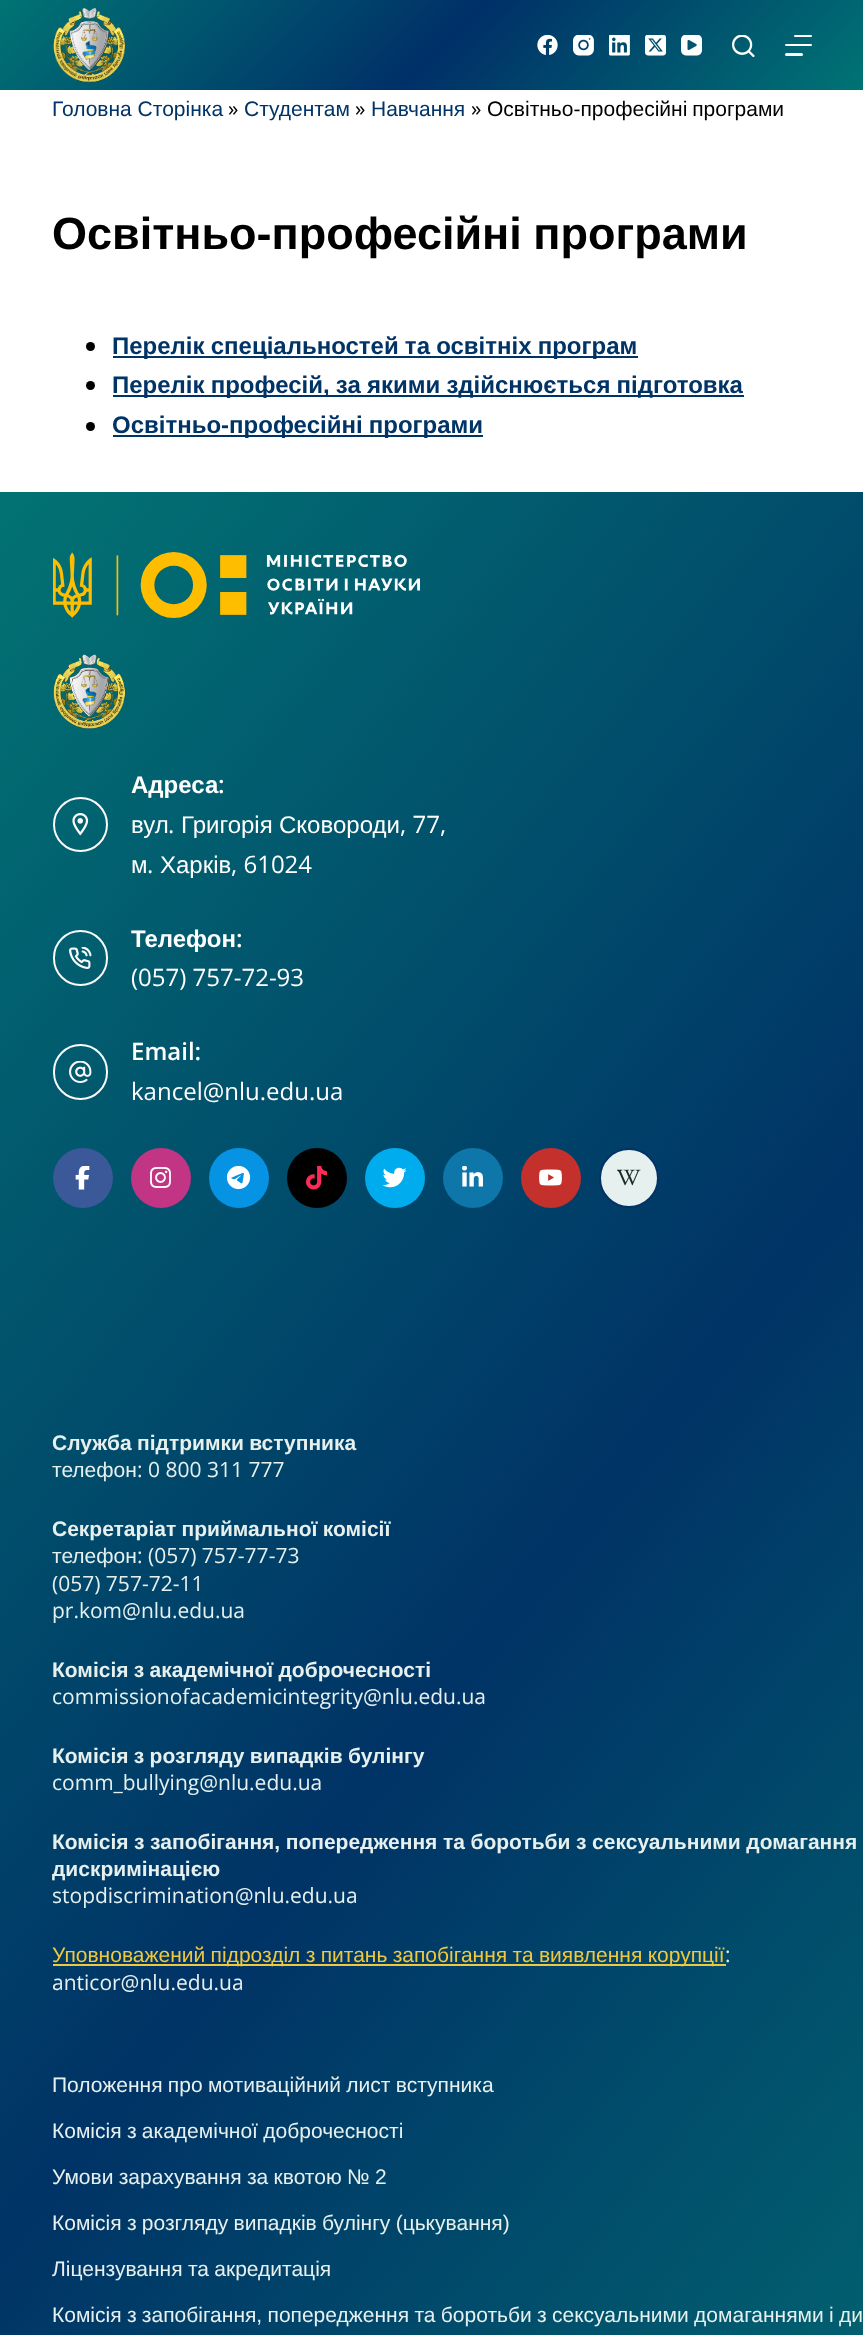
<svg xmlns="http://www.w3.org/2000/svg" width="863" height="2335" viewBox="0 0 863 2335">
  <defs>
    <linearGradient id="g1" gradientUnits="userSpaceOnUse" x1="194" y1="-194" x2="671" y2="284"><stop offset="0" stop-color="#007474"/><stop offset="0.51" stop-color="#003068"/><stop offset="1" stop-color="#007474"/></linearGradient>
    <linearGradient id="g2" gradientUnits="userSpaceOnUse" x1="-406" y1="994" x2="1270" y2="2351"><stop offset="0" stop-color="#027373"/><stop offset="0.51" stop-color="#003366"/><stop offset="1" stop-color="#027373"/></linearGradient>
  </defs>
  <rect width="100%" height="100%" fill="#ffffff"/>
  <rect x="0" y="0" width="863" height="90" fill="url(#g1)"/>
  <image x="53" y="7" width="72" height="76" href="img1.png"/>
  <image x="537" y="35" width="21" height="20" href="img2.png"/>
  <image x="573" y="35" width="21" height="21" href="img3.png"/>
  <image x="609" y="35" width="21" height="21" href="img4.png"/>
  <image x="645" y="35" width="21" height="21" href="img5.png"/>
  <image x="681" y="35" width="21" height="21" href="img6.png"/>
  <image x="732" y="35" width="23" height="22" href="img7.png"/>
  <rect x="794" y="35" width="18" height="2" rx="1" fill="#ffffff"/>
  <rect x="785" y="44" width="27" height="2" rx="1" fill="#ffffff"/>
  <rect x="785" y="53" width="18" height="3" rx="1.5" fill="#ffffff"/>
  <text x="52" y="116" font-family="Liberation Sans" font-size="21" fill="#003366">Головна Сторінка</text>
  <text x="228" y="116" font-family="Open Sans" font-size="21" fill="#000000">»</text>
  <text x="244" y="116" font-family="Liberation Sans" font-size="21" fill="#003366">Студентам</text>
  <text x="355" y="116" font-family="Open Sans" font-size="21" fill="#000000">»</text>
  <text x="371" y="116" font-family="Liberation Sans" font-size="21" fill="#003366">Навчання</text>
  <text x="471" y="116" font-family="Open Sans" font-size="21" fill="#000000">»</text>
  <text x="487" y="116" word-spacing="-1" font-family="Liberation Sans" font-size="21" fill="#000000">Освітньо-професійні програми</text>
  <text x="52" y="249" word-spacing="-1" font-family="Liberation Sans" font-size="45" font-weight="bold" fill="#000000">Освітньо-професійні програми</text>
  <circle cx="90.5" cy="346.5" r="4.5" fill="#000000"/>
  <rect x="113" y="356" width="525" height="2" fill="#003366"/>
  <text x="112" y="354" word-spacing="-0.5" font-family="Liberation Sans" font-size="24" font-weight="bold" fill="#003366">Перелік спеціальностей та освітніх програм</text>
  <circle cx="90.5" cy="385.5" r="4.5" fill="#000000"/>
  <rect x="113" y="395" width="631" height="2" fill="#003366"/>
  <text x="112" y="393" word-spacing="-0.5" font-family="Liberation Sans" font-size="24" font-weight="bold" fill="#003366">Перелік професій, за якими здійснюється підготовка</text>
  <circle cx="90.5" cy="426.5" r="4.5" fill="#000000"/>
  <rect x="113" y="435" width="370" height="2" fill="#003366"/>
  <text x="112" y="433" word-spacing="-0.5" font-family="Liberation Sans" font-size="24" font-weight="bold" fill="#003366">Освітньо-професійні програми</text>
  <rect x="0" y="492" width="863" height="1843" fill="url(#g2)"/>
  <image x="53" y="552" width="367" height="66" href="img8.png"/>
  <image x="53" y="654" width="73" height="75" href="img9.png"/>
  <circle cx="80.5" cy="824.5" r="26.5" fill="none" stroke="#fbfbfc" stroke-width="2"/>
  <image x="72" y="813" width="17" height="23" href="img10.png"/>
  <text x="131" y="793" font-family="Liberation Sans" font-size="24" font-weight="bold" fill="#ffffff">Адреса</text>
  <text x="218" y="793" font-family="Open Sans" font-size="24" font-weight="600" fill="#ffffff">:</text>
  <text x="131" y="833" font-family="Liberation Sans" font-size="24" fill="#ffffff">вул</text>
  <text x="168" y="833" font-family="Open Sans" font-size="24" fill="#ffffff">.</text>
  <text x="181" y="833" font-family="Liberation Sans" font-size="24" fill="#ffffff">Григорія</text>
  <text x="279" y="833" font-family="Liberation Sans" font-size="24" fill="#ffffff">Сковороди</text>
  <text x="400" y="833" font-family="Open Sans" font-size="24" fill="#ffffff">, 77,</text>
  <text x="131" y="873" font-family="Liberation Sans" font-size="24" fill="#ffffff">м</text>
  <text x="147" y="873" font-family="Open Sans" font-size="24" fill="#ffffff">.</text>
  <text x="160" y="873" font-family="Liberation Sans" font-size="24" fill="#ffffff">Харків</text>
  <text x="231" y="873" font-family="Open Sans" font-size="24" fill="#ffffff">, 61024</text>
  <rect x="54" y="931" width="53" height="54" rx="26.5" fill="none" stroke="#fbfbfc" stroke-width="2"/>
  <image x="69" y="947" width="23" height="22" href="img11.png"/>
  <text x="131" y="947" font-family="Liberation Sans" font-size="24" font-weight="bold" fill="#ffffff">Телефон</text>
  <text x="236" y="947" font-family="Open Sans" font-size="24" font-weight="600" fill="#ffffff">:</text>
  <text x="131" y="986" font-family="Open Sans" font-size="24" fill="#ffffff">(057) 757-72-93</text>
  <rect x="54" y="1045" width="53" height="54" rx="26.5" fill="none" stroke="#fbfbfc" stroke-width="2"/>
  <image x="69" y="1061" width="23" height="22" href="img12.png"/>
  <text x="131" y="1060" font-family="Open Sans" font-size="24" font-weight="600" fill="#ffffff">Email:</text>
  <text x="131" y="1100" font-family="Open Sans" font-size="24" fill="#ffffff">kancel@nlu.edu.ua</text>
  <circle cx="83" cy="1178" r="30" fill="#3b5998"/>
  <image x="75" y="1166" width="15" height="24" href="img13.png"/>
  <circle cx="161" cy="1178" r="30" fill="#c13584"/>
  <image x="150" y="1167" width="21" height="21" href="img14.png"/>
  <circle cx="239" cy="1178" r="30" fill="#0693e3"/>
  <image x="227" y="1166" width="24" height="24" href="img15.png"/>
  <circle cx="317" cy="1178" r="30" fill="#000000"/>
  <image x="306" y="1166" width="21" height="24" href="img16.png"/>
  <circle cx="395" cy="1178" r="30" fill="#00acee"/>
  <image x="383" y="1167" width="24" height="21" href="img17.png"/>
  <circle cx="473" cy="1178" r="30" fill="#0e76a8"/>
  <image x="462" y="1166" width="21" height="21" href="img18.png"/>
  <circle cx="551" cy="1178" r="30" fill="#c4302b"/>
  <image x="539" y="1169" width="23" height="17" href="img19.png"/>
  <circle cx="629" cy="1178" r="29" fill="#e6f0ee" stroke="#003366" stroke-width="2"/>
  <image x="617" y="1169" width="24" height="17" href="img20.png"/>
  <text x="52" y="1450" word-spacing="-0.5" font-family="Liberation Sans" font-size="21" font-weight="bold" fill="#e6f0ee">Служба підтримки вступника</text>
  <text x="52" y="1477" font-family="Liberation Sans" font-size="21" fill="#e6f0ee">телефон</text>
  <text x="137" y="1477" font-family="Open Sans" font-size="21" fill="#e6f0ee">: 0 800 311 777</text>
  <text x="52" y="1536" word-spacing="-0.5" font-family="Liberation Sans" font-size="21" font-weight="bold" fill="#e6f0ee">Секретаріат приймальної комісії</text>
  <text x="52" y="1563" font-family="Liberation Sans" font-size="21" fill="#e6f0ee">телефон</text>
  <text x="137" y="1563" font-family="Open Sans" font-size="21" fill="#e6f0ee">: (057) 757-77-73</text>
  <text x="52" y="1591" font-family="Open Sans" font-size="21" fill="#e6f0ee">(057) 757-72-11</text>
  <text x="52" y="1618" font-family="Open Sans" font-size="21" fill="#e6f0ee">pr.kom@nlu.edu.ua</text>
  <text x="52" y="1677" word-spacing="-0.5" font-family="Liberation Sans" font-size="21" font-weight="bold" fill="#e6f0ee">Комісія з академічної доброчесності</text>
  <text x="52" y="1704" font-family="Open Sans" font-size="21" fill="#e6f0ee">commissionofacademicintegrity@nlu.edu.ua</text>
  <text x="52" y="1763" word-spacing="-0.5" font-family="Liberation Sans" font-size="21" font-weight="bold" fill="#e6f0ee">Комісія з розгляду випадків булінгу</text>
  <text x="52" y="1790" font-family="Open Sans" font-size="21" fill="#e6f0ee">comm_bullying@nlu.edu.ua</text>
  <text x="52" y="1849" word-spacing="-0.25" font-family="Liberation Sans" font-size="21" font-weight="bold" fill="#e6f0ee">Комісія з запобігання, попередження та боротьби з сексуальними домагання</text>
  <text x="52" y="1876" font-family="Liberation Sans" font-size="21" font-weight="bold" fill="#e6f0ee">дискримінацією</text>
  <text x="52" y="1903" font-family="Open Sans" font-size="21" fill="#e6f0ee">stopdiscrimination@nlu.edu.ua</text>
  <rect x="53" y="1964" width="673" height="2" fill="#f0c83d"/>
  <text x="52" y="1962" word-spacing="-0.5" font-family="Liberation Sans" font-size="21" fill="#f0c83d">Уповноважений підрозділ з питань запобігання та виявлення корупції</text>
  <text x="725" y="1962" font-family="Open Sans" font-size="21" fill="#e6f0ee">:</text>
  <text x="52" y="1990" font-family="Open Sans" font-size="21" fill="#e6f0ee">anticor@nlu.edu.ua</text>
  <text x="52" y="2092" word-spacing="-0.5" font-family="Liberation Sans" font-size="21" fill="#e6f0ee">Положення про мотиваційний лист вступника</text>
  <text x="52" y="2138" word-spacing="-0.5" font-family="Liberation Sans" font-size="21" fill="#e6f0ee">Комісія з академічної доброчесності</text>
  <text x="52" y="2184" word-spacing="-0.5" font-family="Liberation Sans" font-size="21" fill="#e6f0ee">Умови зарахування за квотою № 2</text>
  <text x="52" y="2230" word-spacing="-0.5" font-family="Liberation Sans" font-size="21" fill="#e6f0ee">Комісія з розгляду випадків булінгу (цькування)</text>
  <text x="52" y="2276" word-spacing="-0.5" font-family="Liberation Sans" font-size="21" fill="#e6f0ee">Ліцензування та акредитація</text>
  <text x="52" y="2322" word-spacing="-0.5" font-family="Liberation Sans" font-size="21" fill="#e6f0ee">Комісія з запобігання, попередження та боротьби з сексуальними домаганнями і ди</text>
</svg>
